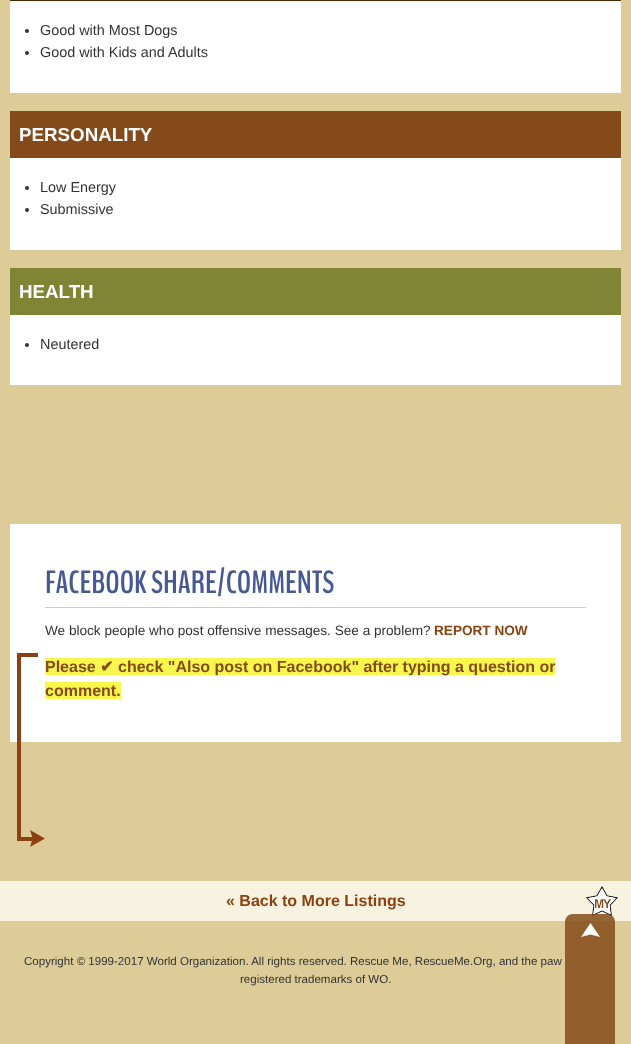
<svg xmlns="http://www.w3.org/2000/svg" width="631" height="1044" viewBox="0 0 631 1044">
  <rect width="100%" height="100%" fill="#ddcc98"/>
  <rect x="10" y="1" width="611" height="92" fill="#ffffff"/>
  <rect x="10" y="0" width="611" height="1" fill="#4b2703"/>
  <circle cx="27" cy="31" r="2" fill="#333333"/>
  <text x="40" y="35" font-family="Liberation Sans" font-size="14.4" fill="#333333">Good with Most Dogs</text>
  <circle cx="27" cy="53" r="2" fill="#333333"/>
  <text x="40" y="57" font-family="Liberation Sans" font-size="14.4" fill="#333333">Good with Kids and Adults</text>
  <rect x="10" y="158" width="611" height="92" fill="#ffffff"/>
  <rect x="10" y="111" width="611" height="47" fill="#844a19"/>
  <text x="19" y="141" font-family="Liberation Sans" font-size="18.75" font-weight="bold" fill="#ffffff">PERSONALITY</text>
  <circle cx="27" cy="188" r="2" fill="#333333"/>
  <text x="40" y="192" font-family="Liberation Sans" font-size="14.4" fill="#333333">Low Energy</text>
  <circle cx="27" cy="210" r="2" fill="#333333"/>
  <text x="40" y="214" font-family="Liberation Sans" font-size="14.4" fill="#333333">Submissive</text>
  <rect x="10" y="315" width="611" height="70" fill="#ffffff"/>
  <rect x="10" y="268" width="611" height="47" fill="#808536"/>
  <text x="19" y="298" font-family="Liberation Sans" font-size="18.75" font-weight="bold" fill="#ffffff">HEALTH</text>
  <circle cx="27" cy="345" r="2" fill="#333333"/>
  <text x="40" y="349" font-family="Liberation Sans" font-size="14.4" fill="#333333">Neutered</text>
  <rect x="10" y="524" width="611" height="218" fill="#ffffff"/>
  <rect x="45" y="607" width="541" height="1" fill="#cccccc"/>
  <text x="45" y="593" font-family="BenchNine" font-size="32" font-weight="bold" fill="#475993">FACEBOOK SHARE/COMMENTS</text>
  <text x="45" y="635" font-family="Liberation Sans" font-size="13.6" fill="#333333">We block people who post offensive messages. See a problem?</text>
  <text x="434" y="635" font-family="Liberation Sans" font-size="13.6" font-weight="bold" fill="#8b4112">REPORT NOW</text>
  <image x="17" y="653" width="28" height="194" href="img1.png"/>
  <rect x="45" y="658" width="510" height="17" fill="#f9f74d"/>
  <text x="45" y="672" font-family="Liberation Sans" font-size="16" font-weight="bold" fill="#844a19">Please</text>
  <text x="100" y="672" font-family="DejaVu Sans" font-size="16" font-weight="bold" fill="#844a19">✔</text>
  <text x="118" y="672" font-family="Liberation Sans" font-size="16" font-weight="bold" fill="#844a19">check "Also post on Facebook" after typing a question or</text>
  <rect x="45" y="682" width="76" height="17" fill="#f9f74d"/>
  <text x="45" y="696" font-family="Liberation Sans" font-size="16" font-weight="bold" fill="#844a19">comment.</text>
  <rect x="0" y="881" width="631" height="40" fill="#f8f3e0"/>
  <text x="226" y="906" font-family="Liberation Sans" font-size="16" font-weight="bold" fill="#8b4112">« Back to More Listings</text>
  <image x="586" y="886" width="32" height="30" href="img2.png"/>
  <text x="24" y="965" font-family="Liberation Sans" font-size="11.55" fill="#333333">Copyright © 1999-2017 World Organization. All rights reserved. Rescue Me, RescueMe.Org, and the paw</text>
  <text x="240" y="983" font-family="Liberation Sans" font-size="11.55" fill="#333333">registered trademarks of WO.</text>
  <path d="M573 914H607C611.5 914 615 917.5 615 922V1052H565V922C565 917.5 568.5 914 573 914Z" fill="#844a19" fill-opacity="0.85"/>
  <image x="581" y="923" width="19" height="14" href="img3.png"/>
</svg>
